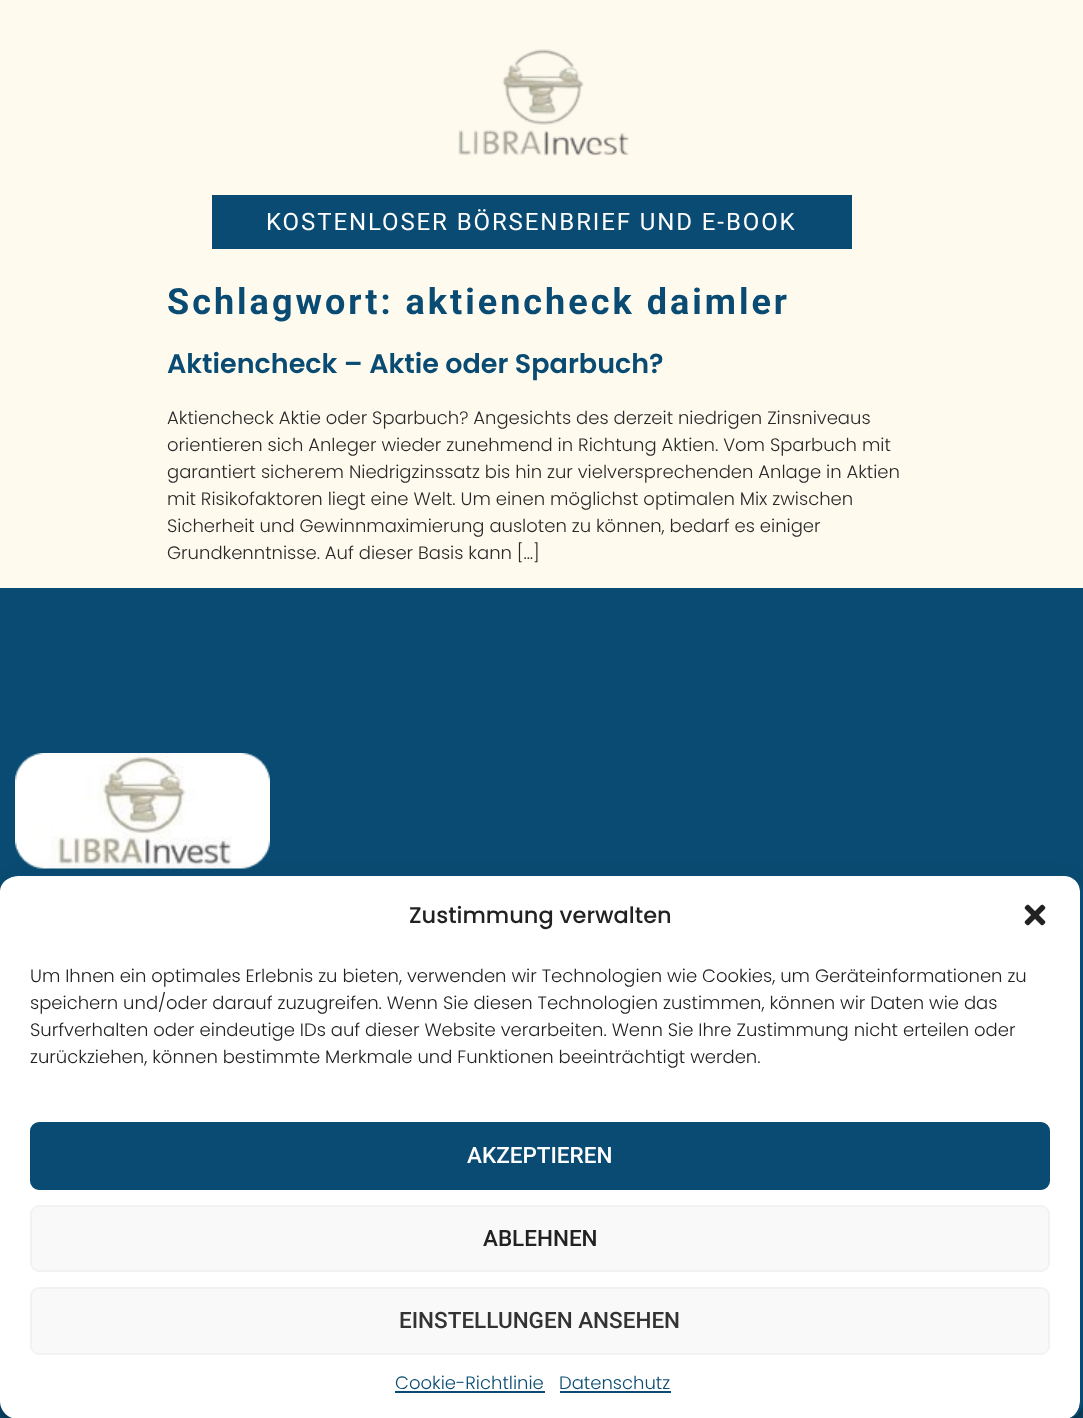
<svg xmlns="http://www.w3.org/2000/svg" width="1083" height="1418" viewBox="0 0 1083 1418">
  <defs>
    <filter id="blur1" x="-50%" y="-200%" width="200%" height="500%"><feGaussianBlur stdDeviation="4.5"/></filter>
    <filter id="blur2" x="-50%" y="-200%" width="200%" height="500%"><feGaussianBlur stdDeviation="15"/></filter>
  </defs>
  <rect width="100%" height="100%" fill="#fefaee"/>
  <image x="458" y="49" width="171" height="107" href="img1.png"/>
  <rect x="212" y="195" width="640" height="54" fill="#094b72"/>
  <text x="266" y="230" font-family="Roboto" font-size="24" letter-spacing="1.9" fill="#ffffff">KOSTENLOSER BÖRSENBRIEF UND E-BOOK</text>
  <text x="167" y="314" font-family="Roboto" font-size="36" font-weight="bold" letter-spacing="3" fill="#094b72">Schlagwort: aktiencheck daimler</text>
  <text x="167" y="373" font-family="Poppins" font-size="27" font-weight="600" fill="#094b72">Aktiencheck – Aktie oder Sparbuch?</text>
  <text x="167" y="424" font-family="Poppins" font-size="18" font-weight="300" fill="#292929">Aktiencheck Aktie oder Sparbuch? Angesichts des derzeit niedrigen Zinsniveaus</text>
  <text x="167" y="451" font-family="Poppins" font-size="18" font-weight="300" fill="#292929">orientieren sich Anleger wieder zunehmend in Richtung Aktien. Vom Sparbuch mit</text>
  <text x="167" y="478" font-family="Poppins" font-size="18" font-weight="300" fill="#292929">garantiert sicherem Niedrigzinssatz bis hin zur vielversprechenden Anlage in Aktien</text>
  <text x="167" y="505" font-family="Poppins" font-size="18" font-weight="300" fill="#292929">mit Risikofaktoren liegt eine Welt. Um einen möglichst optimalen Mix zwischen</text>
  <text x="167" y="532" font-family="Poppins" font-size="18" font-weight="300" fill="#292929">Sicherheit und Gewinnmaximierung ausloten zu können, bedarf es einiger</text>
  <text x="167" y="559" font-family="Poppins" font-size="18" font-weight="300" fill="#292929">Grundkenntnisse. Auf dieser Basis kann […]</text>
  <rect x="0" y="588" width="1083" height="830" fill="#094b72"/>
  <image x="15" y="753" width="255" height="116" href="img2.png"/>
  <rect x="0" y="882" width="1083" height="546" rx="18" fill="#000000" fill-opacity="0.23" filter="url(#blur1)"/>
  <rect x="0" y="888" width="1083" height="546" rx="18" fill="#000000" fill-opacity="0.19" filter="url(#blur2)"/>
  <path d="M18 876H1065C1073 876 1080 883 1080 891V1401C1080 1411 1073 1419 1065 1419H18C8 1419 0 1411 0 1401V891C0 883 8 876 18 876Z" fill="#ffffff"/>
  <path d="M18 873H1065C1075 873 1083 881 1083 891V1401C1083 1411 1075 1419 1065 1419H18C8 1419 0 1411 0 1401V891C0 881 8 873 18 873ZM18 876H1065C1073 876 1080 883 1080 891V1401C1080 1411 1073 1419 1065 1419H18C8 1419 0 1411 0 1401V891C0 883 8 876 18 876Z" fill="#0a4b73" fill-rule="evenodd"/>
  <text x="409" y="923" font-family="Poppins" font-size="22.5" font-weight="500" fill="#222222">Zustimmung verwalten</text>
  <image x="1024" y="904" width="22" height="22" href="img3.png"/>
  <text x="30" y="982" font-family="Poppins" font-size="18" font-weight="300" fill="#222222">Um Ihnen ein optimales Erlebnis zu bieten, verwenden wir Technologien wie Cookies, um Geräteinformationen zu</text>
  <text x="30" y="1009" font-family="Poppins" font-size="18" font-weight="300" fill="#222222">speichern und/oder darauf zuzugreifen. Wenn Sie diesen Technologien zustimmen, können wir Daten wie das</text>
  <text x="30" y="1036" font-family="Poppins" font-size="18" font-weight="300" fill="#222222">Surfverhalten oder eindeutige IDs auf dieser Website verarbeiten. Wenn Sie Ihre Zustimmung nicht erteilen oder</text>
  <text x="30" y="1063" font-family="Poppins" font-size="18" font-weight="300" fill="#222222">zurückziehen, können bestimmte Merkmale und Funktionen beeinträchtigt werden.</text>
  <rect x="31" y="1123" width="1018" height="66" rx="8" fill="#0a4b73" stroke="#0a4b73" stroke-width="2"/>
  <text x="467" y="1163" font-family="Roboto" font-size="22.5" font-weight="500" fill="#ffffff">AKZEPTIEREN</text>
  <rect x="31" y="1206" width="1018" height="65" rx="8" fill="#f9f9f9" stroke="#f2f2f2" stroke-width="2"/>
  <text x="483" y="1246" font-family="Roboto" font-size="22.5" font-weight="500" fill="#222222">ABLEHNEN</text>
  <rect x="31" y="1288" width="1018" height="66" rx="8" fill="#f9f9f9" stroke="#f2f2f2" stroke-width="2"/>
  <text x="399" y="1328" font-family="Roboto" font-size="22.5" font-weight="500" fill="#333333">EINSTELLUNGEN ANSEHEN</text>
  <text x="395" y="1389" font-family="Poppins" font-size="18" font-weight="300" fill="#094b72">Cookie-Richtlinie</text>
  <rect x="395" y="1391" width="150" height="2" fill="#0a4b73"/>
  <text x="559" y="1389" font-family="Poppins" font-size="18" font-weight="300" fill="#094b72">Datenschutz</text>
  <rect x="560" y="1391" width="111" height="2" fill="#0a4b73"/>
</svg>
